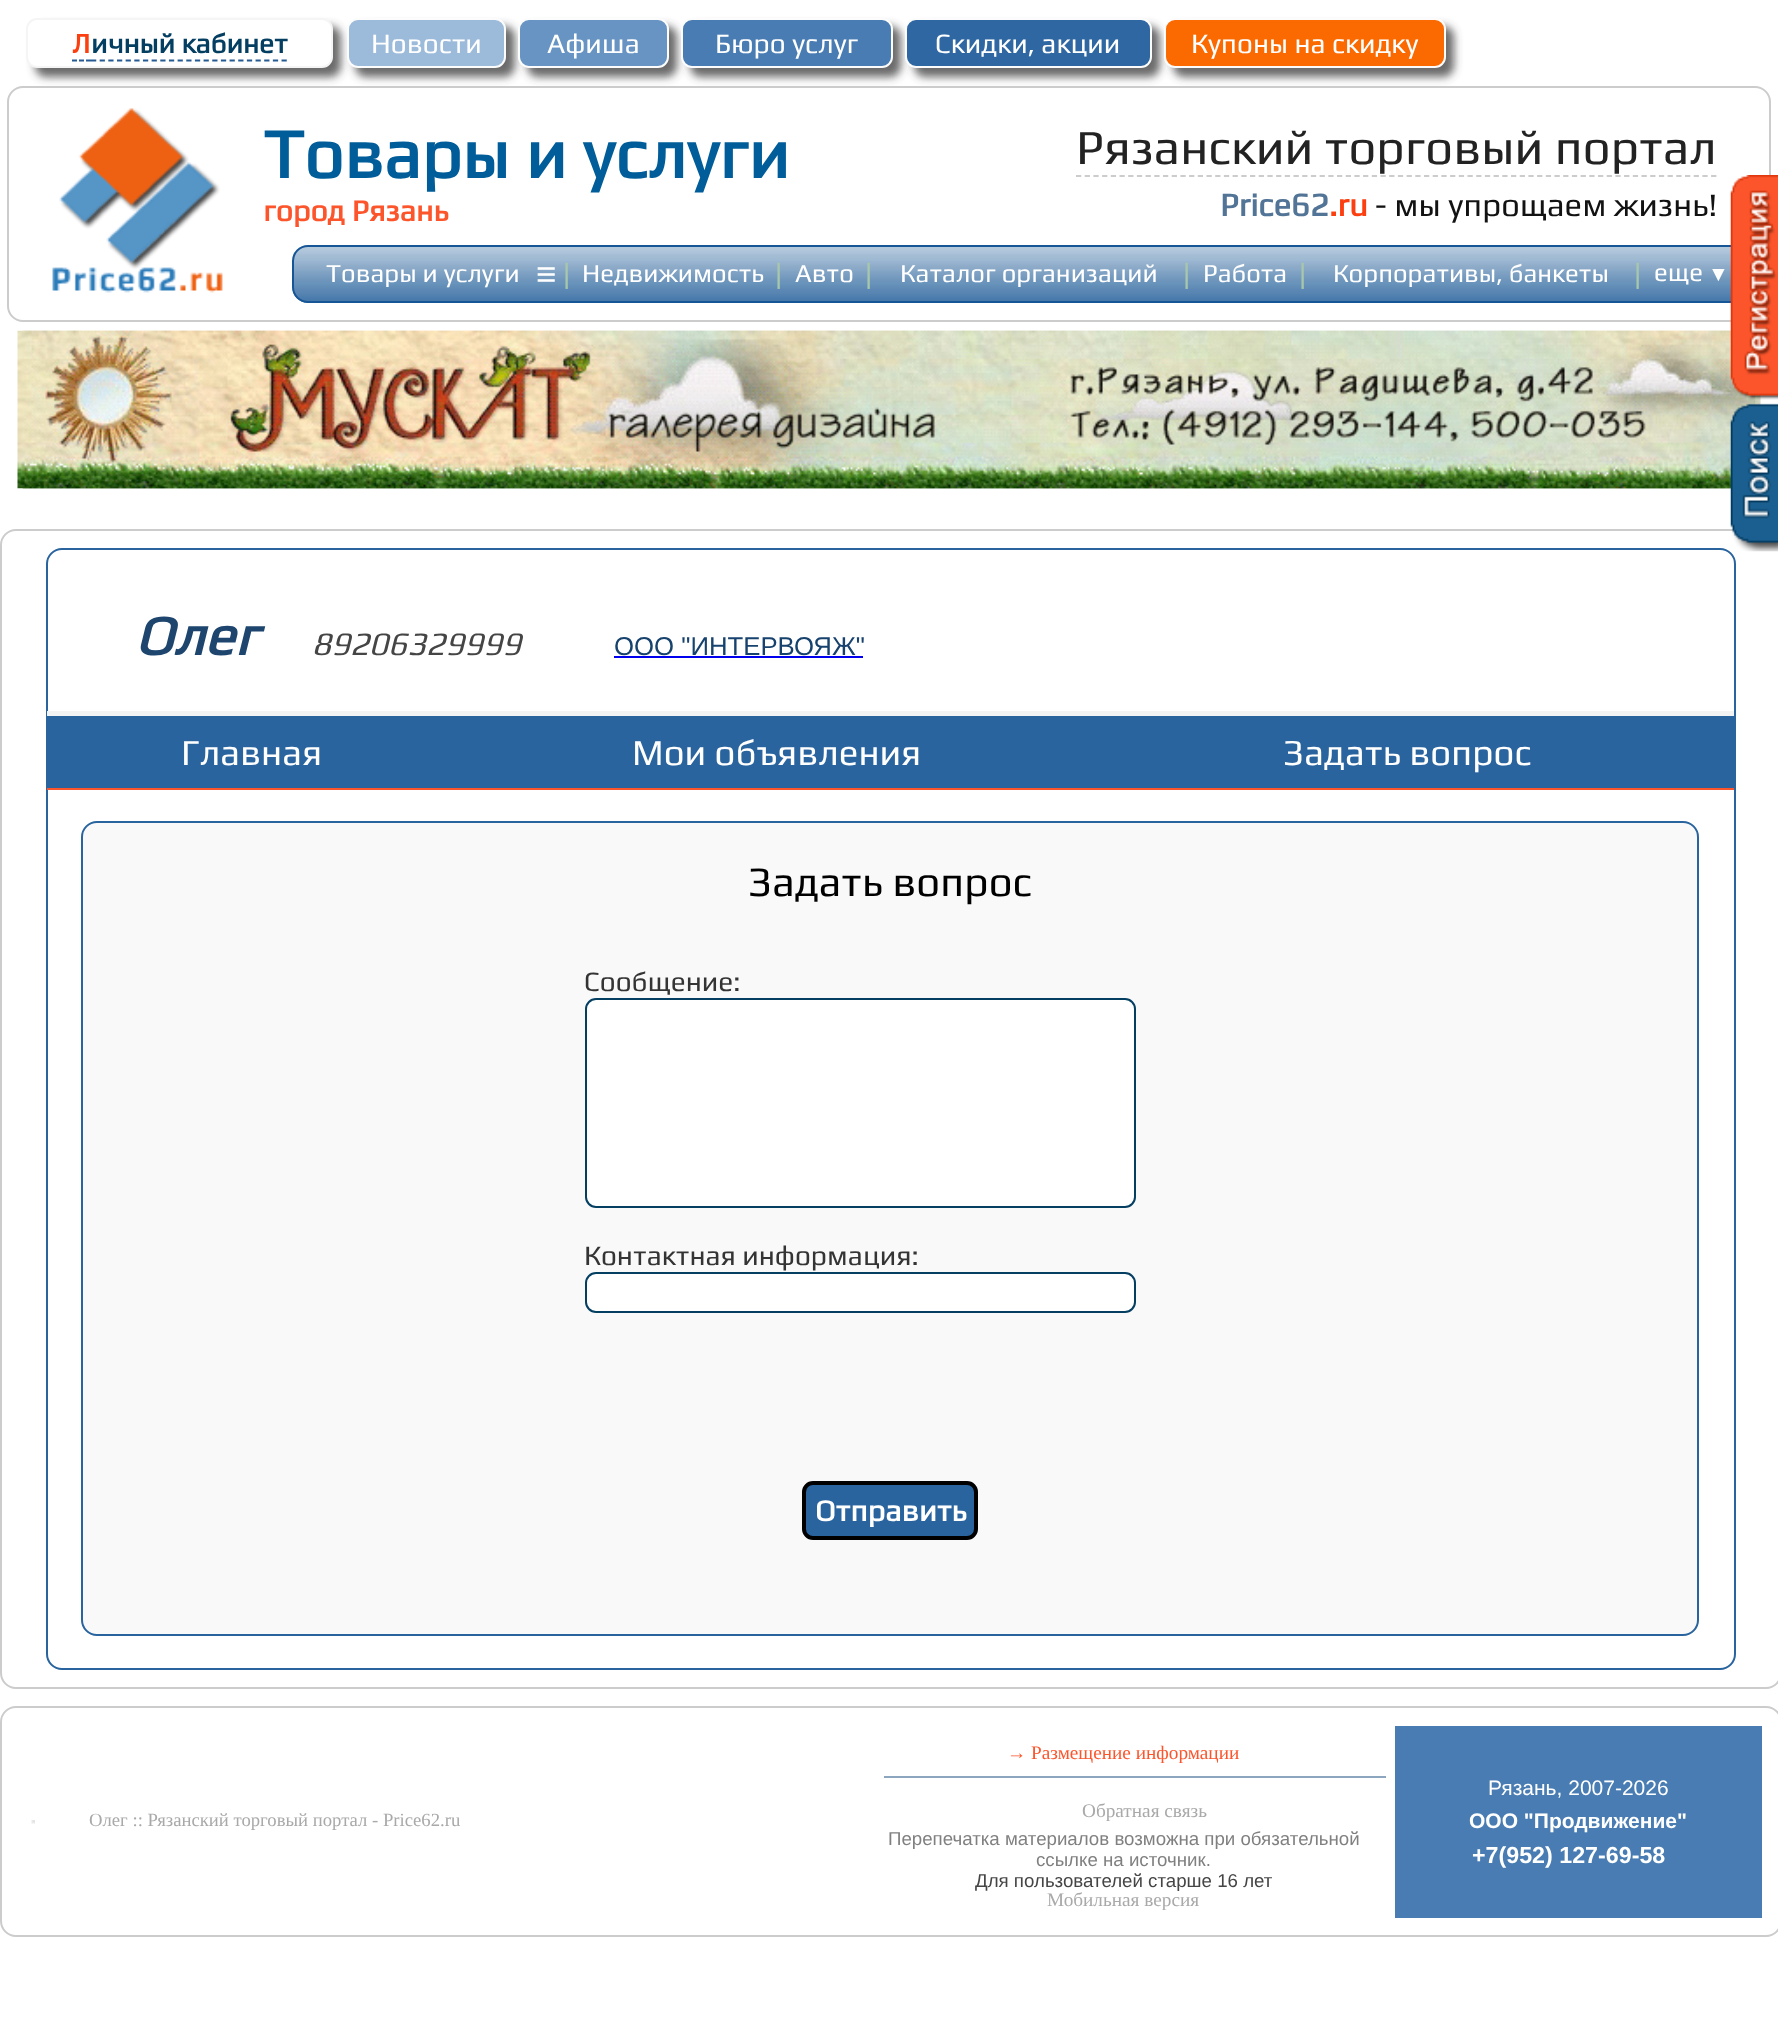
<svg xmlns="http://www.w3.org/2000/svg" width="1778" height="2030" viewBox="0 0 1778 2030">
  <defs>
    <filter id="blur1" x="-50%" y="-200%" width="200%" height="500%"><feGaussianBlur stdDeviation="4.5"/></filter>
  </defs>
  <rect width="100%" height="100%" fill="#ffffff"/>
  <rect x="35" y="26" width="306" height="51" rx="11" fill="#444444" fill-opacity="0.8" filter="url(#blur1)"/>
  <rect x="27" y="19" width="305" height="48" rx="10" fill="#ffffff" stroke="#f5f5f5" stroke-width="2"/>
  <text x="72" y="53" font-family="Play" font-size="28" font-weight="bold" fill="#fc3f10">Л</text>
  <path d="M72 60.5H77M79 60.5H84M86 60.5H91" fill="none" stroke="#255b92" stroke-width="1.8"/>
  <text x="91" y="53" font-family="Play" font-size="28" font-weight="bold" fill="#043f62">ичный кабинет</text>
  <path d="M91 60.5H287" fill="none" stroke="#255b92" stroke-width="1.8" stroke-dasharray="5.25 3.41"/>
  <rect x="355" y="26" width="160" height="51" rx="11" fill="#444444" fill-opacity="0.8" filter="url(#blur1)"/>
  <rect x="348" y="19" width="157" height="48" rx="10" fill="#9cbada" stroke="#fcfcfc" stroke-width="2"/>
  <text x="371" y="53" font-family="Play" font-size="28" fill="#ffffff">Новости</text>
  <rect x="527" y="26" width="150" height="51" rx="11" fill="#444444" fill-opacity="0.8" filter="url(#blur1)"/>
  <rect x="519" y="19" width="149" height="48" rx="10" fill="#6794c2" stroke="#fcfcfc" stroke-width="2"/>
  <text x="547" y="53" font-family="Play" font-size="28" fill="#ffffff">Афиша</text>
  <rect x="690" y="26" width="211" height="51" rx="11" fill="#444444" fill-opacity="0.8" filter="url(#blur1)"/>
  <rect x="682" y="19" width="210" height="48" rx="10" fill="#487cb2" stroke="#fcfcfc" stroke-width="2"/>
  <text x="715" y="53" font-family="Play" font-size="28" fill="#ffffff">Бюро услуг</text>
  <rect x="914" y="26" width="246" height="51" rx="11" fill="#444444" fill-opacity="0.8" filter="url(#blur1)"/>
  <rect x="906" y="19" width="245" height="48" rx="10" fill="#2f67a2" stroke="#fcfcfc" stroke-width="2"/>
  <text x="935" y="53" font-family="Play" font-size="28" fill="#ffffff">Скидки, акции</text>
  <rect x="1173" y="26" width="281" height="51" rx="11" fill="#444444" fill-opacity="0.8" filter="url(#blur1)"/>
  <rect x="1165" y="19" width="280" height="48" rx="10" fill="#fa6a01" stroke="#fcfcfc" stroke-width="2"/>
  <text x="1191" y="53" font-family="Play" font-size="28" fill="#ffffff">Купоны на скидку</text>
  <rect x="8" y="87" width="1762" height="234" rx="15" fill="none" stroke="#cccccc" stroke-width="2"/>
  <image x="52" y="108" width="171" height="185" href="img1.png"/>
  <text x="263" y="178" font-family="Play" font-size="70" font-weight="bold" fill="#005d99">Товары и услуги</text>
  <text x="263" y="221" font-family="Play" font-size="30.25" font-weight="bold" fill="#fc552b">город Рязань</text>
  <text x="1076" y="164" font-family="Play" font-size="49" fill="#222222">Рязанский торговый портал</text>
  <path d="M1076 176H1717" fill="none" stroke="#cccccc" stroke-width="1.8" stroke-dasharray="5.25 3.45"/>
  <text x="1220" y="216" font-family="Play" font-size="32.75" font-weight="bold" fill="#527496">Price62</text>
  <text x="1329" y="216" font-family="Play" font-size="32.75" font-weight="bold" fill="#fc3f10">.ru</text>
  <text x="1375" y="216" font-family="Play" font-size="32.75" fill="#121212">- мы упрощаем жизнь!</text>
  <image x="292" y="246" width="1439" height="57" href="img2.png"/>
  <rect x="293" y="246" width="1458" height="56" rx="15" fill="none" stroke="#165696" stroke-width="2"/>
  <text x="326" y="282" font-family="Play" font-size="25.75" fill="#ffffff">Товары и услуги</text>
  <text x="536" y="286" font-family="Liberation Sans" font-size="35" fill="#ffffff">≡</text>
  <text x="563" y="283" font-family="Liberation Sans" font-size="28" fill="#a7c7ac">|</text>
  <text x="582" y="282" font-family="Play" font-size="25.75" fill="#ffffff">Недвижимость</text>
  <text x="775" y="283" font-family="Liberation Sans" font-size="28" fill="#a7c7ac">|</text>
  <text x="795" y="282" font-family="Play" font-size="25.75" fill="#ffffff">Авто</text>
  <text x="865" y="283" font-family="Liberation Sans" font-size="28" fill="#a7c7ac">|</text>
  <text x="900" y="282" font-family="Play" font-size="25.75" fill="#ffffff">Каталог организаций</text>
  <text x="1183" y="283" font-family="Liberation Sans" font-size="28" fill="#a7c7ac">|</text>
  <text x="1203" y="282" font-family="Play" font-size="25.75" fill="#ffffff">Работа</text>
  <text x="1299" y="283" font-family="Liberation Sans" font-size="28" fill="#a7c7ac">|</text>
  <text x="1333" y="282" font-family="Play" font-size="25.75" fill="#ffffff">Корпоративы, банкеты</text>
  <text x="1634" y="283" font-family="Liberation Sans" font-size="28" fill="#a7c7ac">|</text>
  <text x="1654" y="281" font-family="Play" font-size="25.75" fill="#ffffff">еще</text>
  <text x="1708" y="281" font-family="Liberation Sans" font-size="21" fill="#ffffff">▼</text>
  <image x="17" y="330" width="1744" height="159" href="img4.png"/>
  <image x="22" y="330" width="1734" height="159" href="img5.png"/>
  <image x="1730" y="175" width="48" height="225" href="img3.png"/>
  <rect x="1" y="530" width="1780" height="1158" rx="15" fill="none" stroke="#cccccc" stroke-width="2"/>
  <rect x="47" y="549" width="1688" height="1120" rx="15" fill="none" stroke="#29649e" stroke-width="2"/>
  <image x="1730" y="403" width="48" height="149" href="img6.png"/>
  <rect x="47" y="711" width="1687" height="5" fill="#f3f3f3"/>
  <text x="135" y="655" font-family="Play" font-size="56" font-weight="bold" font-style="italic" fill="#1d456d">Олег</text>
  <text x="312" y="655" font-family="Play" font-size="32.75" font-style="italic" fill="#454545">89206329999</text>
  <text x="614" y="655" font-family="Liberation Sans" font-size="25.75" fill="#16426d">ООО "ИНТЕРВОЯЖ"</text>
  <rect x="614" y="656" width="249" height="2" fill="#0000ee"/>
  <rect x="48" y="716" width="1686" height="72" fill="#29649e"/>
  <rect x="47" y="788" width="1687" height="2" fill="#fc552b"/>
  <text x="181" y="765" font-family="Play" font-size="36.75" fill="#ffffff">Главная</text>
  <text x="632" y="765" font-family="Play" font-size="36.75" fill="#ffffff">Мои объявления</text>
  <text x="1283" y="765" font-family="Play" font-size="36.75" fill="#ffffff">Задать вопрос</text>
  <rect x="82" y="822" width="1616" height="813" rx="15" fill="#f9f9f9" stroke="#29649e" stroke-width="2"/>
  <text x="748" y="896" font-family="Play" font-size="42" fill="#000000">Задать вопрос</text>
  <text x="584" y="991" font-family="Play" font-size="28" fill="#343434">Сообщение:</text>
  <rect x="586" y="999" width="549" height="208" rx="10" fill="#ffffff" stroke="#043f62" stroke-width="2"/>
  <text x="584" y="1265" font-family="Play" font-size="28" fill="#343434">Контактная информация:</text>
  <rect x="586" y="1273" width="549" height="39" rx="10" fill="#ffffff" stroke="#043f62" stroke-width="2"/>
  <rect x="804" y="1483" width="172" height="55" rx="9" fill="#29649e" stroke="#000000" stroke-width="4"/>
  <text x="815" y="1521" font-family="Play" font-size="30.25" font-weight="bold" fill="#ffffff">Отправить</text>
  <rect x="1" y="1707" width="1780" height="229" rx="15" fill="none" stroke="#cccccc" stroke-width="2"/>
  <image x="31" y="1820" width="4" height="4" href="img7.png"/>
  <text x="89" y="1826" font-family="Liberation Serif" font-size="18.7" fill="#a9a9a9">Олег :: Рязанский торговый портал - Price62.ru</text>
  <text x="1007" y="1759" font-family="Liberation Serif" font-size="19.25" fill="#fc552b">→ Размещение информации</text>
  <rect x="884" y="1776" width="502" height="2" fill="#8ca6c0"/>
  <text x="1082" y="1817" font-family="Liberation Serif" font-size="19.25" fill="#a9a9a9">Обратная связь</text>
  <text x="888" y="1845" font-family="Liberation Sans" font-size="18.7" fill="#808080">Перепечатка материалов возможна при обязательной</text>
  <text x="1036" y="1866" font-family="Liberation Sans" font-size="18.7" fill="#808080">ссылке на источник.</text>
  <text x="975" y="1887" font-family="Liberation Sans" font-size="18.7" fill="#454545">Для пользователей старше 16 лет</text>
  <text x="1047" y="1906" font-family="Liberation Serif" font-size="19.25" fill="#a9a9a9">Мобильная версия</text>
  <rect x="1395" y="1726" width="367" height="192" fill="#487cb2"/>
  <text x="1488" y="1795" font-family="Liberation Sans" font-size="21" fill="#ffffff">Рязань, 2007-2026</text>
  <text x="1469" y="1828" font-family="Liberation Sans" font-size="21" font-weight="bold" fill="#ffffff">ООО "Продвижение"</text>
  <text x="1472" y="1863" font-family="Liberation Sans" font-size="23.25" font-weight="bold" fill="#ffffff">+7(952) 127-69-58</text>
</svg>
